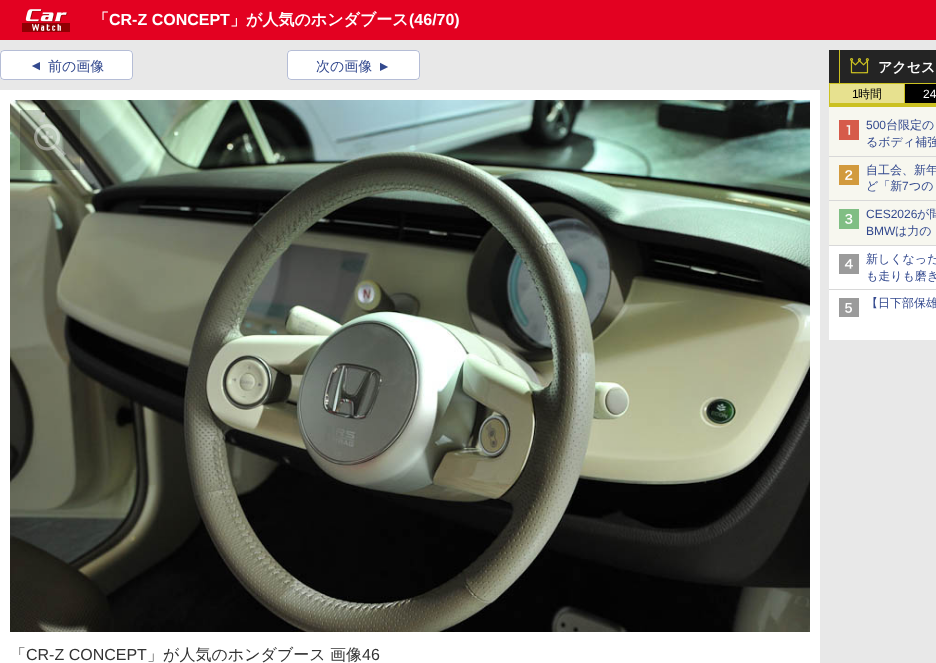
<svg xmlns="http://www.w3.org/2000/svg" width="936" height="663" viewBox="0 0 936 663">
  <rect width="100%" height="100%" fill="#e8e8e8"/>
  <rect x="0" y="0" width="936" height="40" fill="#e30121"/>
  <image x="22" y="9" width="48" height="23" href="img1.png"/>
  <text x="93" y="25" font-family="WenQuanYi Zen Hei" font-size="16" font-weight="bold" fill="#ffffff">「</text>
  <text x="109" y="25" font-family="Liberation Sans" font-size="16" font-weight="bold" fill="#ffffff">CR-Z CONCEPT</text>
  <text x="230" y="25" font-family="WenQuanYi Zen Hei" font-size="16" font-weight="bold" fill="#ffffff">」が人気のホンダブース</text>
  <text x="409" y="25" font-family="Liberation Sans" font-size="16" font-weight="bold" fill="#ffffff">(46/70)</text>
  <rect x="0" y="50" width="133" height="30" rx="4" fill="#ffffff"/>
  <rect x="0.5" y="50.5" width="132" height="29" rx="3.5" fill="none" stroke="#32498e" stroke-opacity="0.36"/>
  <text x="40" y="73" transform="rotate(-90 40 73)" font-family="Liberation Sans" font-size="14" fill="#33498e">▲</text>
  <text x="48" y="71" font-family="WenQuanYi Zen Hei" font-size="14" font-weight="500" fill="#33498e">前の画像</text>
  <rect x="287" y="50" width="133" height="30" rx="4" fill="#ffffff"/>
  <rect x="287.5" y="50.5" width="132" height="29" rx="3.5" fill="none" stroke="#32498e" stroke-opacity="0.36"/>
  <text x="316" y="71" font-family="WenQuanYi Zen Hei" font-size="14" font-weight="500" fill="#33498e">次の画像</text>
  <text x="380" y="60" transform="rotate(90 380 60)" font-family="Liberation Sans" font-size="14" fill="#33498e">▲</text>
  <rect x="0" y="90" width="820" height="573" fill="#ffffff"/>
  <image x="10" y="100" width="800" height="532" href="img2.png"/>
  <rect x="20" y="110" width="60" height="60" fill="#000000" fill-opacity="0.2"/>
  <image x="34" y="124" width="32" height="33" href="img3.png"/>
  <text x="10" y="660" font-family="WenQuanYi Zen Hei" font-size="16" font-weight="500" fill="#333333">「</text>
  <text x="26" y="660" font-family="Liberation Sans" font-size="16" fill="#333333">CR-Z CONCEPT</text>
  <text x="147" y="660" font-family="WenQuanYi Zen Hei" font-size="16" font-weight="500" fill="#333333">」が人気のホンダブース</text>
  <text x="330" y="660" font-family="WenQuanYi Zen Hei" font-size="16" font-weight="500" fill="#333333">画像</text>
  <text x="362" y="660" font-family="Liberation Sans" font-size="16" fill="#333333">46</text>
  <rect x="829" y="50" width="107" height="33" fill="#242424"/>
  <rect x="829" y="83" width="107" height="1" fill="#cbc121"/>
  <rect x="839" y="50" width="1" height="34" fill="#cbc121"/>
  <image x="850" y="58" width="19" height="16" href="img4.png"/>
  <text x="878" y="72" font-family="WenQuanYi Zen Hei" font-size="14" font-weight="bold" fill="#ffffff">アクセス</text>
  <rect x="830" y="84" width="74" height="19" fill="#e7e18f"/>
  <rect x="829" y="103" width="107" height="4" fill="#cbc121"/>
  <rect x="829" y="84" width="1" height="23" fill="#cbc121"/>
  <text x="852" y="98" font-family="Liberation Sans" font-size="12" fill="#000000">1</text>
  <text x="858" y="98" font-family="WenQuanYi Zen Hei" font-size="12" font-weight="500" fill="#000000">時間</text>
  <rect x="905" y="84" width="31" height="19" fill="#000000"/>
  <rect x="904" y="84" width="1" height="23" fill="#cbc121"/>
  <text x="923" y="98" font-family="Liberation Sans" font-size="12" fill="#ffffff">24</text>
  <rect x="829" y="107" width="107" height="49" fill="#f7f7ef"/>
  <rect x="829" y="156" width="107" height="1" fill="#d8d8d8"/>
  <image x="839" y="120" width="20" height="20" href="img5.png"/>
  <text x="866" y="129" font-family="Liberation Sans" font-size="12" fill="#33498e">500</text>
  <text x="886" y="129" font-family="WenQuanYi Zen Hei" font-size="12" font-weight="500" fill="#33498e">台限定の</text>
  <text x="866" y="146" font-family="WenQuanYi Zen Hei" font-size="12" font-weight="500" fill="#33498e">るボディ補強</text>
  <rect x="829" y="157" width="107" height="43" fill="#f7f7ef"/>
  <rect x="829" y="200" width="107" height="1" fill="#d8d8d8"/>
  <image x="839" y="165" width="20" height="20" href="img6.png"/>
  <text x="866" y="174" font-family="WenQuanYi Zen Hei" font-size="12" font-weight="500" fill="#33498e">自工会、新年</text>
  <text x="866" y="190" font-family="WenQuanYi Zen Hei" font-size="12" font-weight="500" fill="#33498e">ど「新</text>
  <text x="902" y="190" font-family="Liberation Sans" font-size="12" fill="#33498e">7</text>
  <text x="909" y="190" font-family="WenQuanYi Zen Hei" font-size="12" font-weight="500" fill="#33498e">つの</text>
  <rect x="829" y="201" width="107" height="44" fill="#f7f7ef"/>
  <rect x="829" y="245" width="107" height="1" fill="#d8d8d8"/>
  <image x="839" y="209" width="20" height="20" href="img7.png"/>
  <text x="866" y="218" font-family="Liberation Sans" font-size="12" fill="#33498e">CES2026</text>
  <text x="917" y="218" font-family="WenQuanYi Zen Hei" font-size="12" font-weight="500" fill="#33498e">が間</text>
  <text x="866" y="235" font-family="Liberation Sans" font-size="12" fill="#33498e">BMW</text>
  <text x="895" y="235" font-family="WenQuanYi Zen Hei" font-size="12" font-weight="500" fill="#33498e">は力の</text>
  <rect x="829" y="246" width="107" height="94" fill="#ffffff"/>
  <rect x="829" y="289" width="107" height="1" fill="#d8d8d8"/>
  <image x="839" y="254" width="20" height="20" href="img8.png"/>
  <text x="866" y="263" font-family="WenQuanYi Zen Hei" font-size="12" font-weight="500" fill="#33498e">新しくなった</text>
  <text x="866" y="280" font-family="WenQuanYi Zen Hei" font-size="12" font-weight="500" fill="#33498e">も走りも磨き</text>
  <image x="839" y="298" width="20" height="19" href="img9.png"/>
  <text x="866" y="307" font-family="WenQuanYi Zen Hei" font-size="12" font-weight="500" fill="#33498e">【日下部保雄</text>
</svg>
